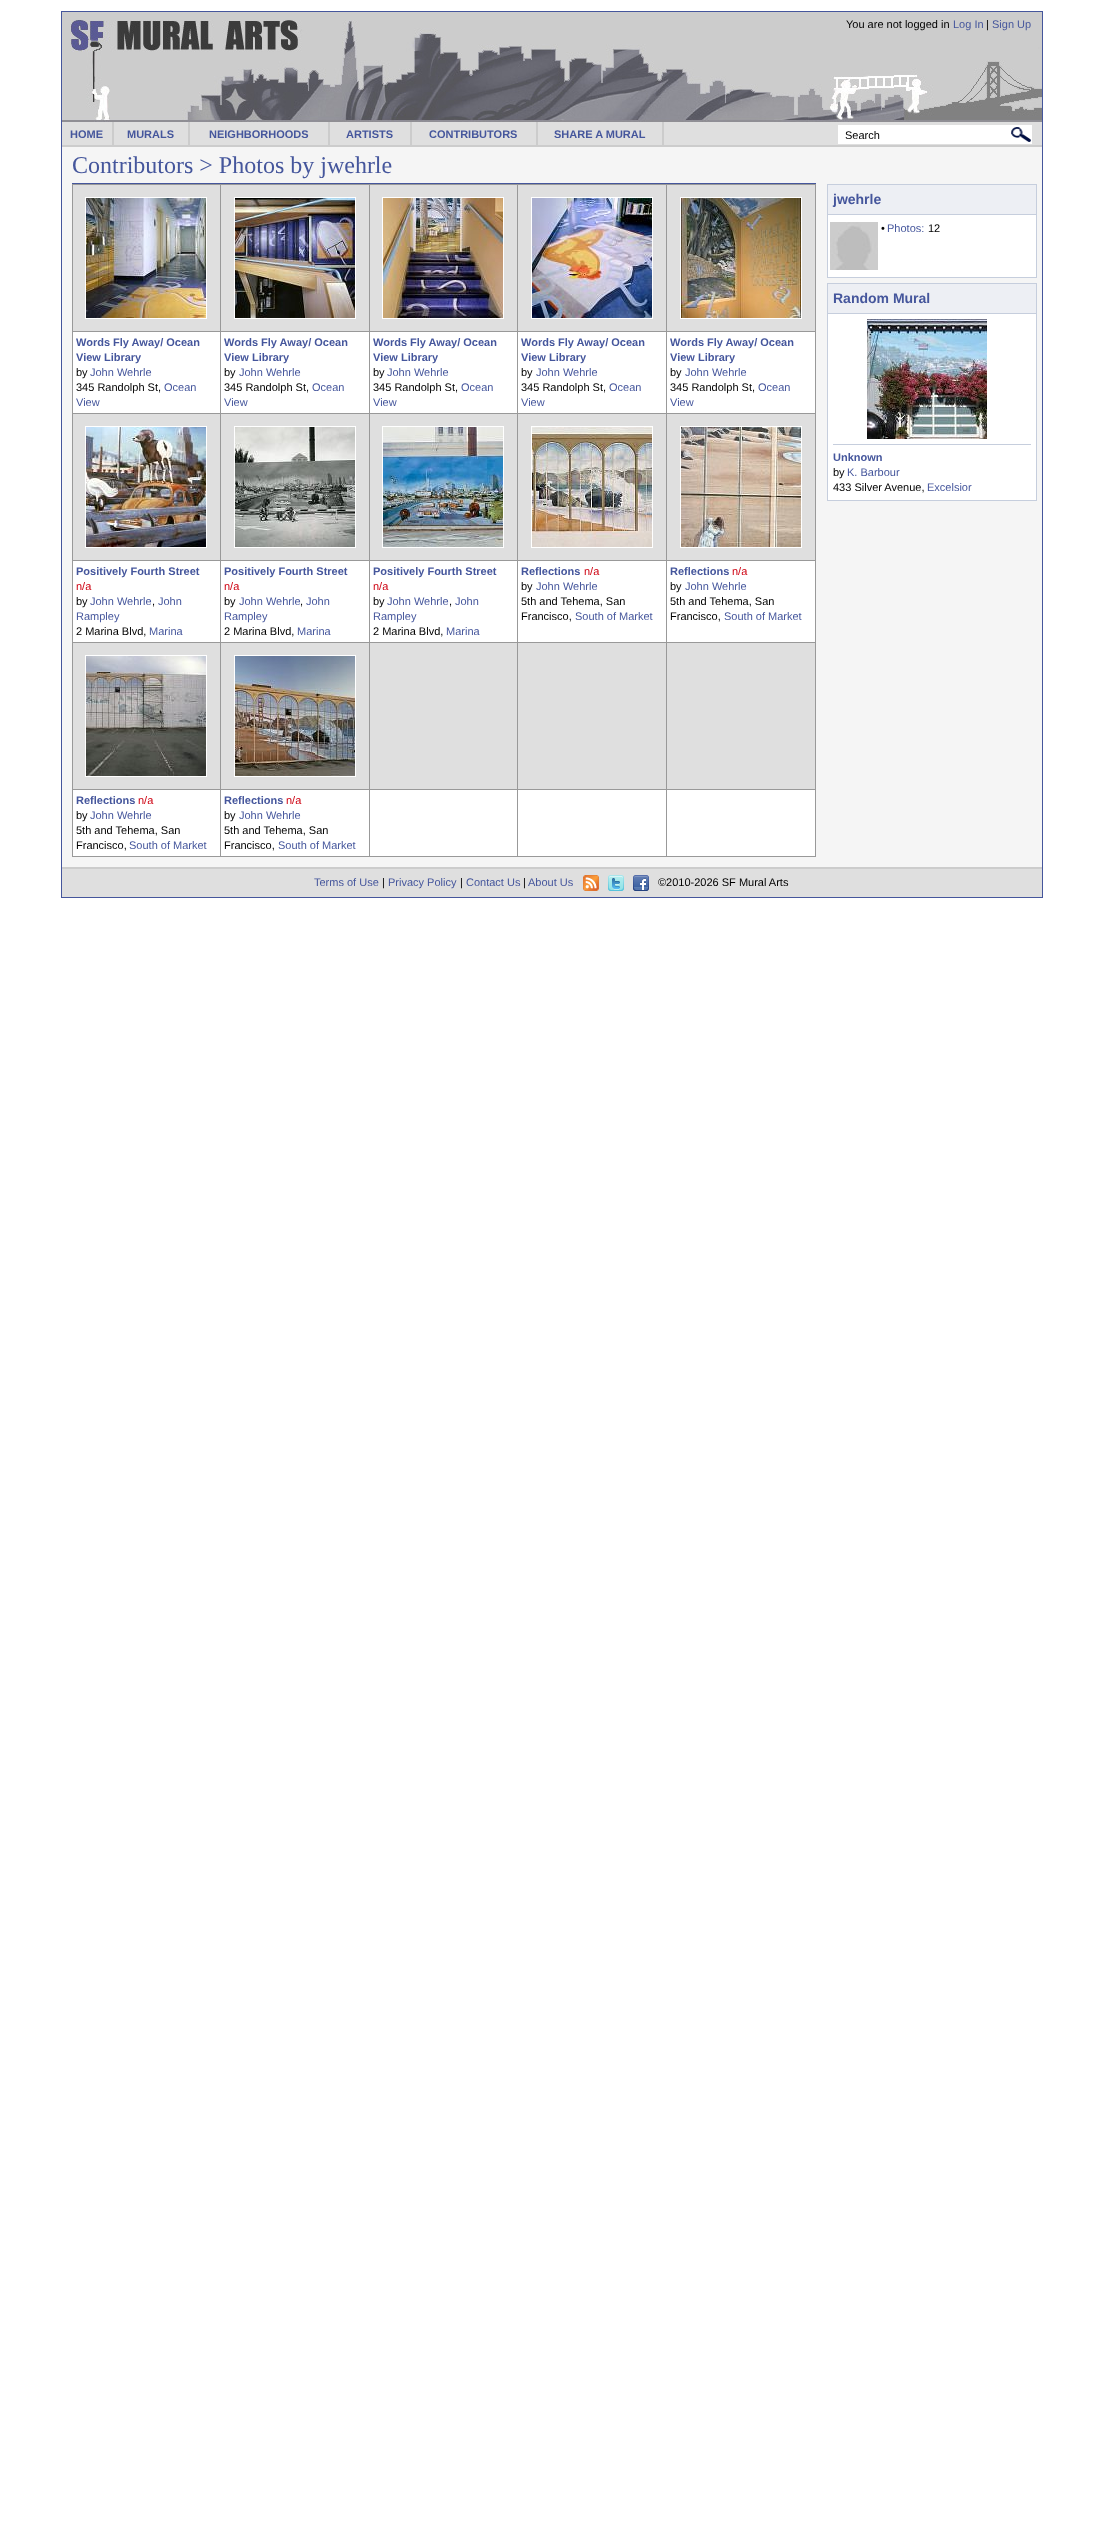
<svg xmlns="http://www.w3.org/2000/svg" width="1103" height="2542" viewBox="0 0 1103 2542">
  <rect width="100%" height="100%" fill="#ffffff"/>
  <rect x="62" y="147" width="980" height="720" fill="#f5f5f5"/>
  <rect x="61.5" y="11.5" width="981" height="886" fill="none" stroke="#45569c"/>
  <image x="62" y="12" width="980" height="135" href="img1.png"/>
  <text x="846" y="28" font-family="Liberation Sans" font-size="11" fill="#000000">You are not logged in</text>
  <text x="953" y="28" font-family="Liberation Sans" font-size="11" fill="#45569c">Log In</text>
  <text x="986" y="28" font-family="Liberation Sans" font-size="11" fill="#000000">|</text>
  <text x="992" y="28" font-family="Liberation Sans" font-size="11" fill="#45569c">Sign Up</text>
  <rect x="62" y="122" width="980" height="23" fill="#dfdfdf"/>
  <rect x="112" y="122" width="2" height="23" fill="#cccccc"/>
  <text x="70" y="138" font-family="Liberation Sans" font-size="11" font-weight="bold" fill="#45569c">HOME</text>
  <rect x="188" y="122" width="2" height="23" fill="#cccccc"/>
  <text x="127" y="138" font-family="Liberation Sans" font-size="11" font-weight="bold" fill="#45569c">MURALS</text>
  <rect x="328" y="122" width="2" height="23" fill="#cccccc"/>
  <text x="209" y="138" font-family="Liberation Sans" font-size="11" font-weight="bold" fill="#45569c">NEIGHBORHOODS</text>
  <rect x="410" y="122" width="2" height="23" fill="#cccccc"/>
  <text x="346" y="138" font-family="Liberation Sans" font-size="11" font-weight="bold" fill="#45569c">ARTISTS</text>
  <rect x="536" y="122" width="2" height="23" fill="#cccccc"/>
  <text x="429" y="138" font-family="Liberation Sans" font-size="11" font-weight="bold" fill="#45569c">CONTRIBUTORS</text>
  <rect x="662" y="122" width="2" height="23" fill="#cccccc"/>
  <text x="554" y="138" font-family="Liberation Sans" font-size="11" font-weight="bold" fill="#45569c">SHARE A MURAL</text>
  <rect x="838" y="125" width="194" height="19" fill="#ffffff"/>
  <text x="845" y="139" font-family="Liberation Sans" font-size="11" fill="#000000">Search</text>
  <image x="1011" y="127" width="20" height="15" href="img2.png"/>
  <rect x="72" y="183" width="744" height="1" fill="#45569c"/>
  <text x="72" y="173" font-family="Liberation Serif" font-size="24" fill="#45569c">Contributors &gt; Photos by jwehrle</text>
  <rect x="73" y="185" width="147" height="146" fill="#dfdfdf"/>
  <rect x="666" y="184" width="150" height="1" fill="#999999"/>
  <rect x="666" y="331" width="150" height="1" fill="#999999"/>
  <rect x="666" y="413" width="150" height="1" fill="#999999"/>
  <rect x="666" y="560" width="150" height="1" fill="#999999"/>
  <rect x="666" y="642" width="150" height="1" fill="#999999"/>
  <rect x="666" y="789" width="150" height="1" fill="#999999"/>
  <rect x="815" y="789" width="1" height="68" fill="#999999"/>
  <rect x="666" y="856" width="150" height="1" fill="#999999"/>
  <rect x="666" y="789" width="1" height="68" fill="#999999"/>
  <rect x="517" y="789" width="150" height="1" fill="#999999"/>
  <rect x="666" y="642" width="1" height="148" fill="#999999"/>
  <rect x="517" y="642" width="150" height="1" fill="#999999"/>
  <rect x="666" y="560" width="1" height="83" fill="#999999"/>
  <rect x="517" y="560" width="150" height="1" fill="#999999"/>
  <rect x="666" y="413" width="1" height="148" fill="#999999"/>
  <rect x="517" y="413" width="150" height="1" fill="#999999"/>
  <rect x="666" y="331" width="1" height="83" fill="#999999"/>
  <rect x="517" y="331" width="150" height="1" fill="#999999"/>
  <rect x="666" y="184" width="1" height="148" fill="#999999"/>
  <rect x="517" y="184" width="150" height="1" fill="#999999"/>
  <rect x="517" y="856" width="150" height="1" fill="#999999"/>
  <rect x="517" y="789" width="1" height="68" fill="#999999"/>
  <rect x="369" y="789" width="149" height="1" fill="#999999"/>
  <rect x="517" y="642" width="1" height="148" fill="#999999"/>
  <rect x="369" y="642" width="149" height="1" fill="#999999"/>
  <rect x="517" y="560" width="1" height="83" fill="#999999"/>
  <rect x="369" y="560" width="149" height="1" fill="#999999"/>
  <rect x="517" y="413" width="1" height="148" fill="#999999"/>
  <rect x="369" y="413" width="149" height="1" fill="#999999"/>
  <rect x="517" y="331" width="1" height="83" fill="#999999"/>
  <rect x="369" y="331" width="149" height="1" fill="#999999"/>
  <rect x="517" y="184" width="1" height="148" fill="#999999"/>
  <rect x="369" y="184" width="149" height="1" fill="#999999"/>
  <rect x="369" y="856" width="149" height="1" fill="#999999"/>
  <rect x="369" y="789" width="1" height="68" fill="#999999"/>
  <rect x="220" y="789" width="150" height="1" fill="#999999"/>
  <rect x="369" y="642" width="1" height="148" fill="#999999"/>
  <rect x="220" y="642" width="150" height="1" fill="#999999"/>
  <rect x="369" y="560" width="1" height="83" fill="#999999"/>
  <rect x="220" y="560" width="150" height="1" fill="#999999"/>
  <rect x="369" y="413" width="1" height="148" fill="#999999"/>
  <rect x="220" y="413" width="150" height="1" fill="#999999"/>
  <rect x="369" y="331" width="1" height="83" fill="#999999"/>
  <rect x="220" y="331" width="150" height="1" fill="#999999"/>
  <rect x="369" y="184" width="1" height="148" fill="#999999"/>
  <rect x="220" y="184" width="150" height="1" fill="#999999"/>
  <rect x="220" y="856" width="150" height="1" fill="#999999"/>
  <rect x="220" y="789" width="1" height="68" fill="#999999"/>
  <rect x="72" y="789" width="149" height="1" fill="#999999"/>
  <rect x="220" y="642" width="1" height="148" fill="#999999"/>
  <rect x="72" y="642" width="149" height="1" fill="#999999"/>
  <rect x="220" y="560" width="1" height="83" fill="#999999"/>
  <rect x="72" y="560" width="149" height="1" fill="#999999"/>
  <rect x="220" y="413" width="1" height="148" fill="#999999"/>
  <rect x="72" y="413" width="149" height="1" fill="#999999"/>
  <rect x="220" y="331" width="1" height="83" fill="#999999"/>
  <rect x="72" y="331" width="149" height="1" fill="#999999"/>
  <rect x="220" y="184" width="1" height="148" fill="#999999"/>
  <rect x="72" y="184" width="149" height="1" fill="#999999"/>
  <rect x="72" y="856" width="149" height="1" fill="#999999"/>
  <rect x="72" y="789" width="1" height="68" fill="#999999"/>
  <rect x="72" y="642" width="1" height="148" fill="#999999"/>
  <rect x="72" y="560" width="1" height="83" fill="#999999"/>
  <rect x="72" y="413" width="1" height="148" fill="#999999"/>
  <rect x="72" y="331" width="1" height="83" fill="#999999"/>
  <rect x="72" y="184" width="1" height="148" fill="#999999"/>
  <rect x="85.5" y="197.5" width="121" height="121" fill="none" stroke="#ffffff"/>
  <image x="86" y="198" width="120" height="120" href="img3.png"/>
  <rect x="221" y="185" width="148" height="146" fill="#dfdfdf"/>
  <rect x="234.5" y="197.5" width="121" height="121" fill="none" stroke="#ffffff"/>
  <image x="235" y="198" width="120" height="120" href="img4.png"/>
  <rect x="370" y="185" width="147" height="146" fill="#dfdfdf"/>
  <rect x="382.5" y="197.5" width="121" height="121" fill="none" stroke="#ffffff"/>
  <image x="383" y="198" width="120" height="120" href="img5.png"/>
  <rect x="518" y="185" width="148" height="146" fill="#dfdfdf"/>
  <rect x="531.5" y="197.5" width="121" height="121" fill="none" stroke="#ffffff"/>
  <image x="532" y="198" width="120" height="120" href="img6.png"/>
  <rect x="667" y="185" width="148" height="146" fill="#dfdfdf"/>
  <rect x="815" y="642" width="1" height="148" fill="#999999"/>
  <rect x="815" y="560" width="1" height="83" fill="#999999"/>
  <rect x="815" y="413" width="1" height="148" fill="#999999"/>
  <rect x="815" y="331" width="1" height="83" fill="#999999"/>
  <rect x="815" y="184" width="1" height="148" fill="#999999"/>
  <rect x="680.5" y="197.5" width="121" height="121" fill="none" stroke="#ffffff"/>
  <image x="681" y="198" width="120" height="120" href="img7.png"/>
  <rect x="73" y="332" width="147" height="81" fill="#ffffff"/>
  <text x="76" y="346" font-family="Liberation Sans" font-size="11" font-weight="bold" fill="#45569c">Words Fly Away/ Ocean</text>
  <text x="76" y="361" font-family="Liberation Sans" font-size="11" font-weight="bold" fill="#45569c">View Library</text>
  <text x="76" y="376" font-family="Liberation Sans" font-size="11" fill="#000000">by</text>
  <text x="90" y="376" font-family="Liberation Sans" font-size="11" fill="#45569c">John Wehrle</text>
  <text x="76" y="391" font-family="Liberation Sans" font-size="11" fill="#000000">345 Randolph St,</text>
  <text x="164" y="391" font-family="Liberation Sans" font-size="11" fill="#45569c">Ocean</text>
  <text x="76" y="406" font-family="Liberation Sans" font-size="11" fill="#45569c">View</text>
  <rect x="221" y="332" width="148" height="81" fill="#ffffff"/>
  <text x="224" y="346" font-family="Liberation Sans" font-size="11" font-weight="bold" fill="#45569c">Words Fly Away/ Ocean</text>
  <text x="224" y="361" font-family="Liberation Sans" font-size="11" font-weight="bold" fill="#45569c">View Library</text>
  <text x="224" y="376" font-family="Liberation Sans" font-size="11" fill="#000000">by</text>
  <text x="239" y="376" font-family="Liberation Sans" font-size="11" fill="#45569c">John Wehrle</text>
  <text x="224" y="391" font-family="Liberation Sans" font-size="11" fill="#000000">345 Randolph St,</text>
  <text x="312" y="391" font-family="Liberation Sans" font-size="11" fill="#45569c">Ocean</text>
  <text x="224" y="406" font-family="Liberation Sans" font-size="11" fill="#45569c">View</text>
  <rect x="370" y="332" width="147" height="81" fill="#ffffff"/>
  <text x="373" y="346" font-family="Liberation Sans" font-size="11" font-weight="bold" fill="#45569c">Words Fly Away/ Ocean</text>
  <text x="373" y="361" font-family="Liberation Sans" font-size="11" font-weight="bold" fill="#45569c">View Library</text>
  <text x="373" y="376" font-family="Liberation Sans" font-size="11" fill="#000000">by</text>
  <text x="387" y="376" font-family="Liberation Sans" font-size="11" fill="#45569c">John Wehrle</text>
  <text x="373" y="391" font-family="Liberation Sans" font-size="11" fill="#000000">345 Randolph St,</text>
  <text x="461" y="391" font-family="Liberation Sans" font-size="11" fill="#45569c">Ocean</text>
  <text x="373" y="406" font-family="Liberation Sans" font-size="11" fill="#45569c">View</text>
  <rect x="518" y="332" width="148" height="81" fill="#ffffff"/>
  <text x="521" y="346" font-family="Liberation Sans" font-size="11" font-weight="bold" fill="#45569c">Words Fly Away/ Ocean</text>
  <text x="521" y="361" font-family="Liberation Sans" font-size="11" font-weight="bold" fill="#45569c">View Library</text>
  <text x="521" y="376" font-family="Liberation Sans" font-size="11" fill="#000000">by</text>
  <text x="536" y="376" font-family="Liberation Sans" font-size="11" fill="#45569c">John Wehrle</text>
  <text x="521" y="391" font-family="Liberation Sans" font-size="11" fill="#000000">345 Randolph St,</text>
  <text x="609" y="391" font-family="Liberation Sans" font-size="11" fill="#45569c">Ocean</text>
  <text x="521" y="406" font-family="Liberation Sans" font-size="11" fill="#45569c">View</text>
  <rect x="667" y="332" width="148" height="81" fill="#ffffff"/>
  <text x="670" y="346" font-family="Liberation Sans" font-size="11" font-weight="bold" fill="#45569c">Words Fly Away/ Ocean</text>
  <text x="670" y="361" font-family="Liberation Sans" font-size="11" font-weight="bold" fill="#45569c">View Library</text>
  <text x="670" y="376" font-family="Liberation Sans" font-size="11" fill="#000000">by</text>
  <text x="685" y="376" font-family="Liberation Sans" font-size="11" fill="#45569c">John Wehrle</text>
  <text x="670" y="391" font-family="Liberation Sans" font-size="11" fill="#000000">345 Randolph St,</text>
  <text x="758" y="391" font-family="Liberation Sans" font-size="11" fill="#45569c">Ocean</text>
  <text x="670" y="406" font-family="Liberation Sans" font-size="11" fill="#45569c">View</text>
  <rect x="73" y="414" width="147" height="146" fill="#dfdfdf"/>
  <rect x="85.5" y="426.5" width="121" height="121" fill="none" stroke="#ffffff"/>
  <image x="86" y="427" width="120" height="120" href="img8.png"/>
  <rect x="221" y="414" width="148" height="146" fill="#dfdfdf"/>
  <rect x="234.5" y="426.5" width="121" height="121" fill="none" stroke="#ffffff"/>
  <image x="235" y="427" width="120" height="120" href="img9.png"/>
  <rect x="370" y="414" width="147" height="146" fill="#dfdfdf"/>
  <rect x="382.5" y="426.5" width="121" height="121" fill="none" stroke="#ffffff"/>
  <image x="383" y="427" width="120" height="120" href="img10.png"/>
  <rect x="518" y="414" width="148" height="146" fill="#dfdfdf"/>
  <rect x="531.5" y="426.5" width="121" height="121" fill="none" stroke="#ffffff"/>
  <image x="532" y="427" width="120" height="120" href="img11.png"/>
  <rect x="667" y="414" width="148" height="146" fill="#dfdfdf"/>
  <rect x="680.5" y="426.5" width="121" height="121" fill="none" stroke="#ffffff"/>
  <image x="681" y="427" width="120" height="120" href="img12.png"/>
  <rect x="73" y="561" width="147" height="81" fill="#ffffff"/>
  <text x="76" y="575" font-family="Liberation Sans" font-size="11" font-weight="bold" fill="#45569c">Positively Fourth Street</text>
  <text x="76" y="590" font-family="Liberation Sans" font-size="11" fill="#ce0010">n/a</text>
  <text x="76" y="605" font-family="Liberation Sans" font-size="11" fill="#000000">by</text>
  <text x="90" y="605" font-family="Liberation Sans" font-size="11" fill="#45569c">John Wehrle</text>
  <text x="152" y="605" font-family="Liberation Sans" font-size="11" fill="#000000">,</text>
  <text x="158" y="605" font-family="Liberation Sans" font-size="11" fill="#45569c">John</text>
  <text x="76" y="620" font-family="Liberation Sans" font-size="11" fill="#45569c">Rampley</text>
  <text x="76" y="635" font-family="Liberation Sans" font-size="11" fill="#000000">2 Marina Blvd,</text>
  <text x="149" y="635" font-family="Liberation Sans" font-size="11" fill="#45569c">Marina</text>
  <rect x="221" y="561" width="148" height="81" fill="#ffffff"/>
  <text x="224" y="575" font-family="Liberation Sans" font-size="11" font-weight="bold" fill="#45569c">Positively Fourth Street</text>
  <text x="224" y="590" font-family="Liberation Sans" font-size="11" fill="#ce0010">n/a</text>
  <text x="224" y="605" font-family="Liberation Sans" font-size="11" fill="#000000">by</text>
  <text x="239" y="605" font-family="Liberation Sans" font-size="11" fill="#45569c">John Wehrle</text>
  <text x="300" y="605" font-family="Liberation Sans" font-size="11" fill="#000000">,</text>
  <text x="306" y="605" font-family="Liberation Sans" font-size="11" fill="#45569c">John</text>
  <text x="224" y="620" font-family="Liberation Sans" font-size="11" fill="#45569c">Rampley</text>
  <text x="224" y="635" font-family="Liberation Sans" font-size="11" fill="#000000">2 Marina Blvd,</text>
  <text x="297" y="635" font-family="Liberation Sans" font-size="11" fill="#45569c">Marina</text>
  <rect x="370" y="561" width="147" height="81" fill="#ffffff"/>
  <text x="373" y="575" font-family="Liberation Sans" font-size="11" font-weight="bold" fill="#45569c">Positively Fourth Street</text>
  <text x="373" y="590" font-family="Liberation Sans" font-size="11" fill="#ce0010">n/a</text>
  <text x="373" y="605" font-family="Liberation Sans" font-size="11" fill="#000000">by</text>
  <text x="387" y="605" font-family="Liberation Sans" font-size="11" fill="#45569c">John Wehrle</text>
  <text x="449" y="605" font-family="Liberation Sans" font-size="11" fill="#000000">,</text>
  <text x="455" y="605" font-family="Liberation Sans" font-size="11" fill="#45569c">John</text>
  <text x="373" y="620" font-family="Liberation Sans" font-size="11" fill="#45569c">Rampley</text>
  <text x="373" y="635" font-family="Liberation Sans" font-size="11" fill="#000000">2 Marina Blvd,</text>
  <text x="446" y="635" font-family="Liberation Sans" font-size="11" fill="#45569c">Marina</text>
  <rect x="518" y="561" width="148" height="81" fill="#ffffff"/>
  <text x="521" y="575" font-family="Liberation Sans" font-size="11" font-weight="bold" fill="#45569c">Reflections</text>
  <text x="584" y="575" font-family="Liberation Sans" font-size="11" fill="#ce0010">n/a</text>
  <text x="521" y="590" font-family="Liberation Sans" font-size="11" fill="#000000">by</text>
  <text x="536" y="590" font-family="Liberation Sans" font-size="11" fill="#45569c">John Wehrle</text>
  <text x="521" y="605" font-family="Liberation Sans" font-size="11" fill="#000000">5th and Tehema, San</text>
  <text x="521" y="620" font-family="Liberation Sans" font-size="11" fill="#000000">Francisco,</text>
  <text x="575" y="620" font-family="Liberation Sans" font-size="11" fill="#45569c">South of Market</text>
  <rect x="667" y="561" width="148" height="81" fill="#ffffff"/>
  <text x="670" y="575" font-family="Liberation Sans" font-size="11" font-weight="bold" fill="#45569c">Reflections</text>
  <text x="732" y="575" font-family="Liberation Sans" font-size="11" fill="#ce0010">n/a</text>
  <text x="670" y="590" font-family="Liberation Sans" font-size="11" fill="#000000">by</text>
  <text x="685" y="590" font-family="Liberation Sans" font-size="11" fill="#45569c">John Wehrle</text>
  <text x="670" y="605" font-family="Liberation Sans" font-size="11" fill="#000000">5th and Tehema, San</text>
  <text x="670" y="620" font-family="Liberation Sans" font-size="11" fill="#000000">Francisco,</text>
  <text x="724" y="620" font-family="Liberation Sans" font-size="11" fill="#45569c">South of Market</text>
  <rect x="73" y="643" width="147" height="146" fill="#dfdfdf"/>
  <rect x="85.5" y="655.5" width="121" height="121" fill="none" stroke="#ffffff"/>
  <image x="86" y="656" width="120" height="120" href="img13.png"/>
  <rect x="221" y="643" width="148" height="146" fill="#dfdfdf"/>
  <rect x="234.5" y="655.5" width="121" height="121" fill="none" stroke="#ffffff"/>
  <image x="235" y="656" width="120" height="120" href="img14.png"/>
  <rect x="370" y="643" width="147" height="146" fill="#dfdfdf"/>
  <rect x="518" y="643" width="148" height="146" fill="#dfdfdf"/>
  <rect x="667" y="643" width="148" height="146" fill="#dfdfdf"/>
  <rect x="73" y="790" width="147" height="66" fill="#ffffff"/>
  <text x="76" y="804" font-family="Liberation Sans" font-size="11" font-weight="bold" fill="#45569c">Reflections</text>
  <text x="138" y="804" font-family="Liberation Sans" font-size="11" fill="#ce0010">n/a</text>
  <text x="76" y="819" font-family="Liberation Sans" font-size="11" fill="#000000">by</text>
  <text x="90" y="819" font-family="Liberation Sans" font-size="11" fill="#45569c">John Wehrle</text>
  <text x="76" y="834" font-family="Liberation Sans" font-size="11" fill="#000000">5th and Tehema, San</text>
  <text x="76" y="849" font-family="Liberation Sans" font-size="11" fill="#000000">Francisco,</text>
  <text x="129" y="849" font-family="Liberation Sans" font-size="11" fill="#45569c">South of Market</text>
  <rect x="221" y="790" width="148" height="66" fill="#ffffff"/>
  <text x="224" y="804" font-family="Liberation Sans" font-size="11" font-weight="bold" fill="#45569c">Reflections</text>
  <text x="286" y="804" font-family="Liberation Sans" font-size="11" fill="#ce0010">n/a</text>
  <text x="224" y="819" font-family="Liberation Sans" font-size="11" fill="#000000">by</text>
  <text x="239" y="819" font-family="Liberation Sans" font-size="11" fill="#45569c">John Wehrle</text>
  <text x="224" y="834" font-family="Liberation Sans" font-size="11" fill="#000000">5th and Tehema, San</text>
  <text x="224" y="849" font-family="Liberation Sans" font-size="11" fill="#000000">Francisco,</text>
  <text x="278" y="849" font-family="Liberation Sans" font-size="11" fill="#45569c">South of Market</text>
  <rect x="370" y="790" width="147" height="66" fill="#ffffff"/>
  <rect x="518" y="790" width="148" height="66" fill="#ffffff"/>
  <rect x="667" y="790" width="148" height="66" fill="#ffffff"/>
  <rect x="828" y="215" width="208" height="62" fill="#ffffff"/>
  <rect x="827.5" y="184.5" width="209" height="93" fill="none" stroke="#c6cedd"/>
  <rect x="828" y="185" width="208" height="29" fill="#edeff4"/>
  <rect x="828" y="214" width="208" height="1" fill="#c6cedd"/>
  <text x="833" y="204" font-family="Liberation Sans" font-size="14" font-weight="bold" fill="#45569c">jwehrle</text>
  <image x="830" y="222" width="48" height="48" href="img15.png"/>
  <text x="881" y="232" font-family="Liberation Sans" font-size="11" fill="#000000">•</text>
  <text x="887" y="232" font-family="Liberation Sans" font-size="11" fill="#45569c">Photos:</text>
  <text x="928" y="232" font-family="Liberation Sans" font-size="11" fill="#000000">12</text>
  <rect x="828" y="314" width="208" height="186" fill="#ffffff"/>
  <rect x="827.5" y="283.5" width="209" height="217" fill="none" stroke="#c6cedd"/>
  <rect x="828" y="284" width="208" height="29" fill="#edeff4"/>
  <rect x="828" y="313" width="208" height="1" fill="#c6cedd"/>
  <text x="833" y="303" font-family="Liberation Sans" font-size="14" font-weight="bold" fill="#45569c">Random Mural</text>
  <image x="867" y="319" width="120" height="120" href="img16.png"/>
  <rect x="833" y="444" width="198" height="1" fill="#c6cedd"/>
  <text x="833" y="461" font-family="Liberation Sans" font-size="11" font-weight="bold" fill="#45569c">Unknown</text>
  <text x="833" y="476" font-family="Liberation Sans" font-size="11" fill="#000000">by</text>
  <text x="847" y="476" font-family="Liberation Sans" font-size="11" fill="#45569c">K. Barbour</text>
  <text x="833" y="491" font-family="Liberation Sans" font-size="11" fill="#000000">433 Silver Avenue,</text>
  <text x="927" y="491" font-family="Liberation Sans" font-size="11" fill="#45569c">Excelsior</text>
  <rect x="62" y="869" width="980" height="28" fill="#dfdfdf"/>
  <rect x="62" y="867" width="980" height="2" fill="#cccccc"/>
  <text x="314" y="886" font-family="Liberation Sans" font-size="11" fill="#45569c">Terms of Use</text>
  <text x="382" y="886" font-family="Liberation Sans" font-size="11" fill="#000000">|</text>
  <text x="388" y="886" font-family="Liberation Sans" font-size="11" fill="#45569c">Privacy Policy</text>
  <text x="460" y="886" font-family="Liberation Sans" font-size="11" fill="#000000">|</text>
  <text x="466" y="886" font-family="Liberation Sans" font-size="11" fill="#45569c">Contact Us</text>
  <text x="523" y="886" font-family="Liberation Sans" font-size="11" fill="#000000">|</text>
  <text x="528" y="886" font-family="Liberation Sans" font-size="11" fill="#45569c">About Us</text>
  <image x="583" y="875" width="16" height="16" href="img17.png"/>
  <image x="608" y="875" width="16" height="16" href="img18.png"/>
  <image x="633" y="875" width="16" height="16" href="img19.png"/>
  <text x="658" y="886" font-family="Liberation Sans" font-size="11" fill="#000000">©2010-2026 SF Mural Arts</text>
</svg>
